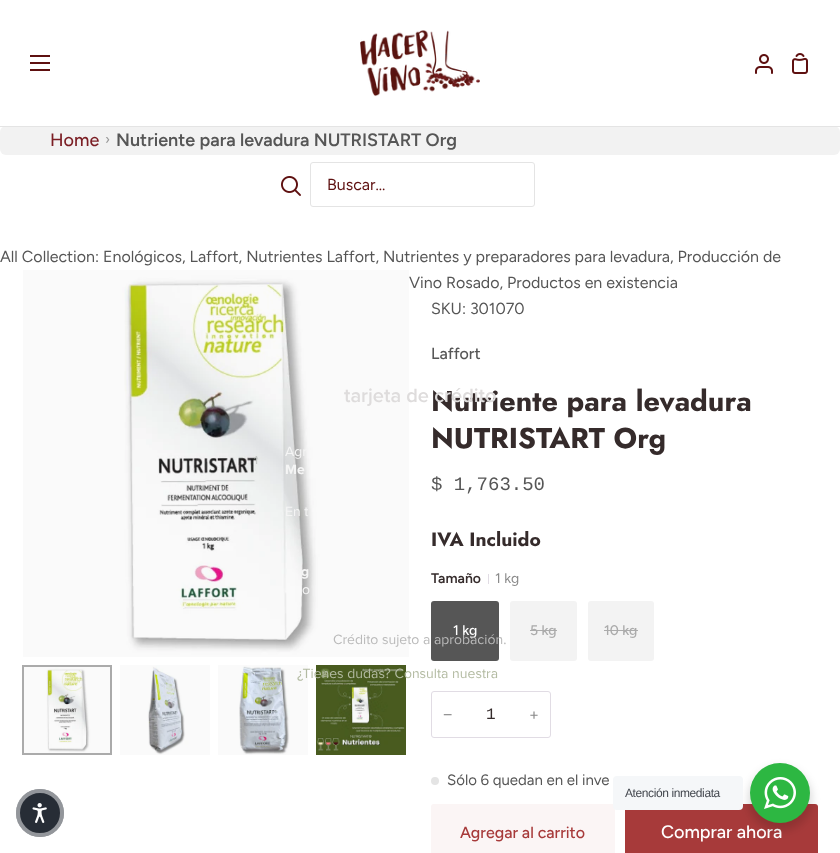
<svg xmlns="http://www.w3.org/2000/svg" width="840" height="853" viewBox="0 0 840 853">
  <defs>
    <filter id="blur1" x="-50%" y="-200%" width="200%" height="500%"><feGaussianBlur stdDeviation="4"/></filter>
  </defs>
  <rect width="100%" height="100%" fill="#ffffff"/>
  <rect x="0" y="126" width="840" height="29" rx="6" fill="#f2f2f2"/>
  <rect x="0" y="126" width="840" height="1" fill="#e4e4e4"/>
  <rect x="30" y="55" width="20" height="2" fill="#5e1010"/>
  <rect x="30" y="62" width="20" height="2" fill="#5e1010"/>
  <rect x="30" y="69" width="20" height="2" fill="#5e1010"/>
  <image x="360" y="30" width="120" height="67" href="img1.png"/>
  <image x="755" y="54" width="18" height="20" href="img2.png"/>
  <image x="792" y="53" width="16" height="21" href="img3.png"/>
  <text x="50" y="146" font-family="Figtree" font-size="18" font-weight="500" fill="#7b1e24">Home</text>
  <text x="105" y="144" font-family="Figtree" font-size="14" fill="#999999">›</text>
  <text x="116" y="146" font-family="Figtree" font-size="18" font-weight="600" fill="#565656">Nutriente para levadura NUTRISTART Org</text>
  <image x="281" y="176" width="20" height="20" href="img4.png"/>
  <rect x="310.5" y="162.5" width="224" height="44" rx="2.5" fill="none" stroke="#e4e4e4"/>
  <text x="327" y="190" font-family="Figtree" font-size="16" fill="#5e1010">Buscar...</text>
  <text x="0" y="262" font-family="Figtree" font-size="16" fill="#565656">All Collection: Enológicos, Laffort, Nutrientes Laffort, Nutrientes y preparadores para levadura, Producción de</text>
  <image x="23" y="270" width="386" height="387" href="img5.png"/>
  <rect x="23" y="666" width="88" height="88" fill="none" stroke="#ababab" stroke-width="2"/>
  <image x="24" y="667" width="86" height="86" href="img6.png"/>
  <image x="120" y="665" width="90" height="90" href="img7.png"/>
  <image x="218" y="665" width="90" height="90" href="img8.png"/>
  <image x="316" y="665" width="90" height="90" href="img9.png"/>
  <text x="409" y="288" font-family="Figtree" font-size="16" fill="#565656">Vino Rosado, Productos en existencia</text>
  <text x="431" y="314" font-family="Figtree" font-size="16" fill="#565656">SKU: 301070</text>
  <text x="431" y="359" font-family="Figtree" font-size="16" font-weight="500" fill="#565656">Laffort</text>
  <text x="431" y="411" font-family="Jost" font-size="28.75" font-weight="bold" fill="#352b2b">Nutriente para levadura</text>
  <text x="431" y="448" font-family="Jost" font-size="28.75" font-weight="bold" fill="#352b2b">NUTRISTART Org</text>
  <text x="431" y="490" font-family="Liberation Mono" font-size="19" fill="#565656">$ 1,763.50</text>
  <text x="431" y="546" font-family="Jost" font-size="19.25" font-weight="bold" fill="#352b2b">IVA Incluido</text>
  <text x="431" y="583" font-family="Figtree" font-size="14" font-weight="600" fill="#352b2b">Tamaño</text>
  <rect x="488" y="574" width="1" height="10" fill="#e1dce4"/>
  <text x="495" y="583" font-family="Figtree" font-size="14" fill="#898989">1 kg</text>
  <rect x="431" y="601" width="68" height="60" rx="3" fill="#565656"/>
  <text x="453" y="635" font-family="Figtree" font-size="14" font-weight="500" fill="#ffffff">1 kg</text>
  <rect x="510" y="601" width="67" height="60" rx="3" fill="#f3f3f3"/>
  <text x="530" y="635" font-family="Figtree" font-size="14" font-weight="500" fill="#ababab">5 kg</text>
  <rect x="530" y="630" width="27" height="1" fill="#ababab"/>
  <rect x="588" y="601" width="66" height="60" rx="3" fill="#f3f3f3"/>
  <text x="604" y="635" font-family="Figtree" font-size="14" font-weight="500" fill="#ababab">10 kg</text>
  <rect x="604" y="630" width="34" height="1" fill="#ababab"/>
  <rect x="431.5" y="691.5" width="119" height="46" rx="2.5" fill="none" stroke="#e1dce4"/>
  <text x="443" y="720" font-family="Liberation Sans" font-size="16" fill="#898989">−</text>
  <text x="486" y="719" font-family="Liberation Mono" font-size="16" fill="#352b2b">1</text>
  <text x="529" y="720" font-family="Figtree" font-size="16" fill="#898989">+</text>
  <circle cx="435" cy="781" r="4" fill="#e4e4e4"/>
  <text x="447" y="785" font-family="Figtree" font-size="15" fill="#565656">Sólo 6 quedan en el inve</text>
  <rect x="431" y="804" width="184" height="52" rx="3" fill="#fbf5f5"/>
  <text x="460" y="838" font-family="Figtree" font-size="16" font-weight="500" fill="#a73a3a">Agregar al carrito</text>
  <rect x="625" y="804" width="193" height="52" rx="3" fill="#a73a3a"/>
  <text x="661" y="838" font-family="Figtree" font-size="18" font-weight="500" fill="#ffffff">Comprar ahora</text>
  <text x="344" y="402" font-family="Proxima Nova" font-size="20" font-weight="600" fill="#dedcdc">tarjeta de crédito</text>
  <text x="254" y="464" font-family="Proxima Nova" font-size="12" fill="#c1c3c2">1</text>
  <text x="285" y="456" font-family="Proxima Nova" font-size="14" fill="#f5f5f5">Agr</text>
  <text x="285" y="474" font-family="Proxima Nova" font-size="14" font-weight="bold" fill="#f5f5f5">Me</text>
  <text x="285" y="516" font-family="Proxima Nova" font-size="14" fill="#f5f5f5">En t</text>
  <text x="301" y="576" font-family="Proxima Nova" font-size="14" font-weight="bold" fill="#f5f5f5">g</text>
  <text x="302" y="594" font-family="Proxima Nova" font-size="14" fill="#f5f5f5">o</text>
  <text x="333" y="644" font-family="Proxima Nova" font-size="14" fill="#bababa">Crédito sujeto a aprobación.</text>
  <text x="297" y="678" font-family="Proxima Nova" font-size="14" fill="#b3bba2">¿Tienes dudas? Consulta nuestra</text>
  <circle cx="40" cy="813" r="24" fill="#272d36"/>
  <circle cx="40" cy="813" r="22" fill="none" stroke="#ffffff" stroke-opacity="0.5" stroke-width="4"/>
  <image x="32" y="803" width="15" height="20" href="img10.png"/>
  <rect x="748" y="767" width="64" height="64" rx="32" fill="#000000" fill-opacity="0.14" filter="url(#blur1)"/>
  <rect x="613" y="776" width="130" height="34" rx="4" fill="#f5f7f9"/>
  <text x="625" y="797" font-family="Liberation Sans" font-size="12" letter-spacing="-0.4" fill="#43474e">Atención inmediata</text>
  <circle cx="780" cy="793" r="30" fill="#2db742"/>
  <image x="764" y="777" width="32" height="32" href="img11.png"/>
</svg>
